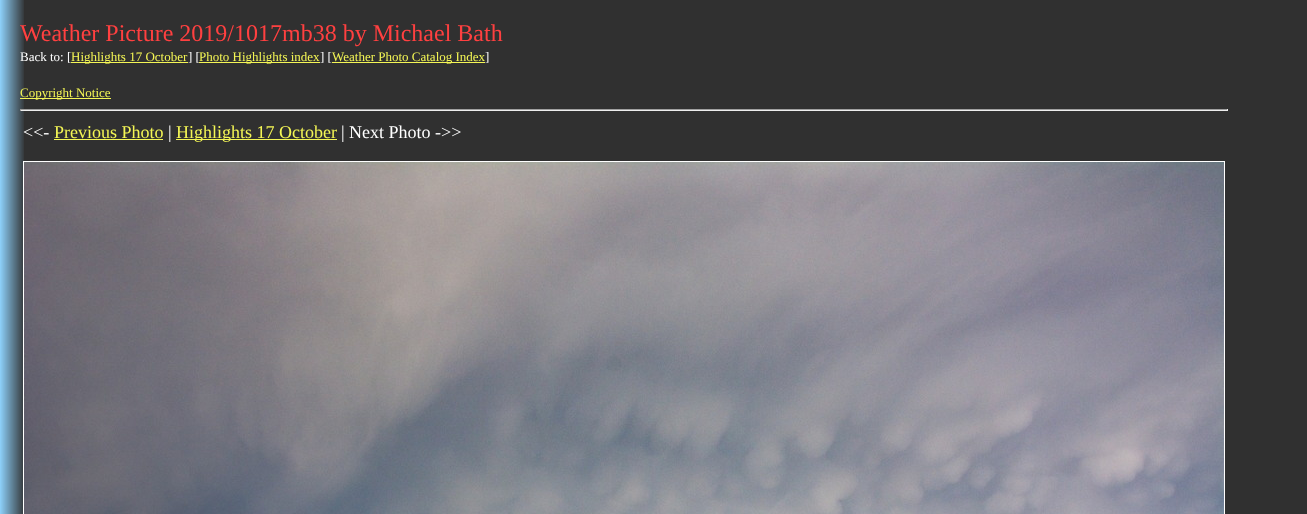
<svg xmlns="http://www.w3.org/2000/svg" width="1307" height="514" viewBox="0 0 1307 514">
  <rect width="100%" height="100%" fill="#ffffff"/>
  <image x="0" y="0" width="1307" height="514" href="img1.png"/>
  <text x="20" y="41" font-family="Liberation Serif" font-size="24" fill="#ff4040">Weather Picture 2019/1017mb38 by Michael Bath</text>
  <text x="20" y="61" font-family="Liberation Serif" font-size="13" fill="#ffffff">Back to: [</text>
  <rect x="71" y="62" width="117" height="1" fill="#f4f655"/>
  <text x="71" y="61" font-family="Liberation Serif" font-size="13" fill="#f4f655">Highlights 17 October</text>
  <text x="188" y="61" font-family="Liberation Serif" font-size="13" fill="#ffffff">] [</text>
  <rect x="199" y="62" width="121" height="1" fill="#f4f655"/>
  <text x="199" y="61" font-family="Liberation Serif" font-size="13" fill="#f4f655">Photo Highlights index</text>
  <text x="320" y="61" font-family="Liberation Serif" font-size="13" fill="#ffffff">] [</text>
  <rect x="332" y="62" width="153" height="1" fill="#f4f655"/>
  <text x="332" y="61" font-family="Liberation Serif" font-size="13" fill="#f4f655">Weather Photo Catalog Index</text>
  <text x="485" y="61" font-family="Liberation Serif" font-size="13" fill="#ffffff">]</text>
  <rect x="20" y="98" width="91" height="1" fill="#f4f655"/>
  <text x="20" y="97" font-family="Liberation Serif" font-size="13" fill="#f4f655">Copyright Notice</text>
  <rect x="20" y="109" width="1208" height="1" fill="#9f9f9f"/>
  <rect x="1227" y="109" width="1" height="2" fill="#eeeeee"/>
  <rect x="20" y="110" width="1208" height="1" fill="#eeeeee"/>
  <rect x="20" y="109" width="1" height="2" fill="#9f9f9f"/>
  <text x="23" y="138" font-family="Liberation Serif" font-size="18" fill="#ffffff">&lt;&lt;-</text>
  <text x="54" y="138" font-family="Liberation Serif" font-size="18" fill="#f4f655">Previous Photo</text>
  <rect x="54" y="139" width="109" height="1" fill="#f4f655"/>
  <text x="168" y="138" font-family="Liberation Serif" font-size="18" fill="#ffffff">|</text>
  <rect x="176" y="139" width="161" height="1" fill="#f4f655"/>
  <text x="176" y="138" font-family="Liberation Serif" font-size="18" fill="#f4f655">Highlights 17 October</text>
  <text x="341" y="138" font-family="Liberation Serif" font-size="18" fill="#ffffff">| Next Photo -&gt;&gt;</text>
  <rect x="23.5" y="161.5" width="1201" height="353" fill="none" stroke="#ffffff"/>
  <image x="24" y="162" width="1200" height="352" href="img2.png"/>
</svg>
